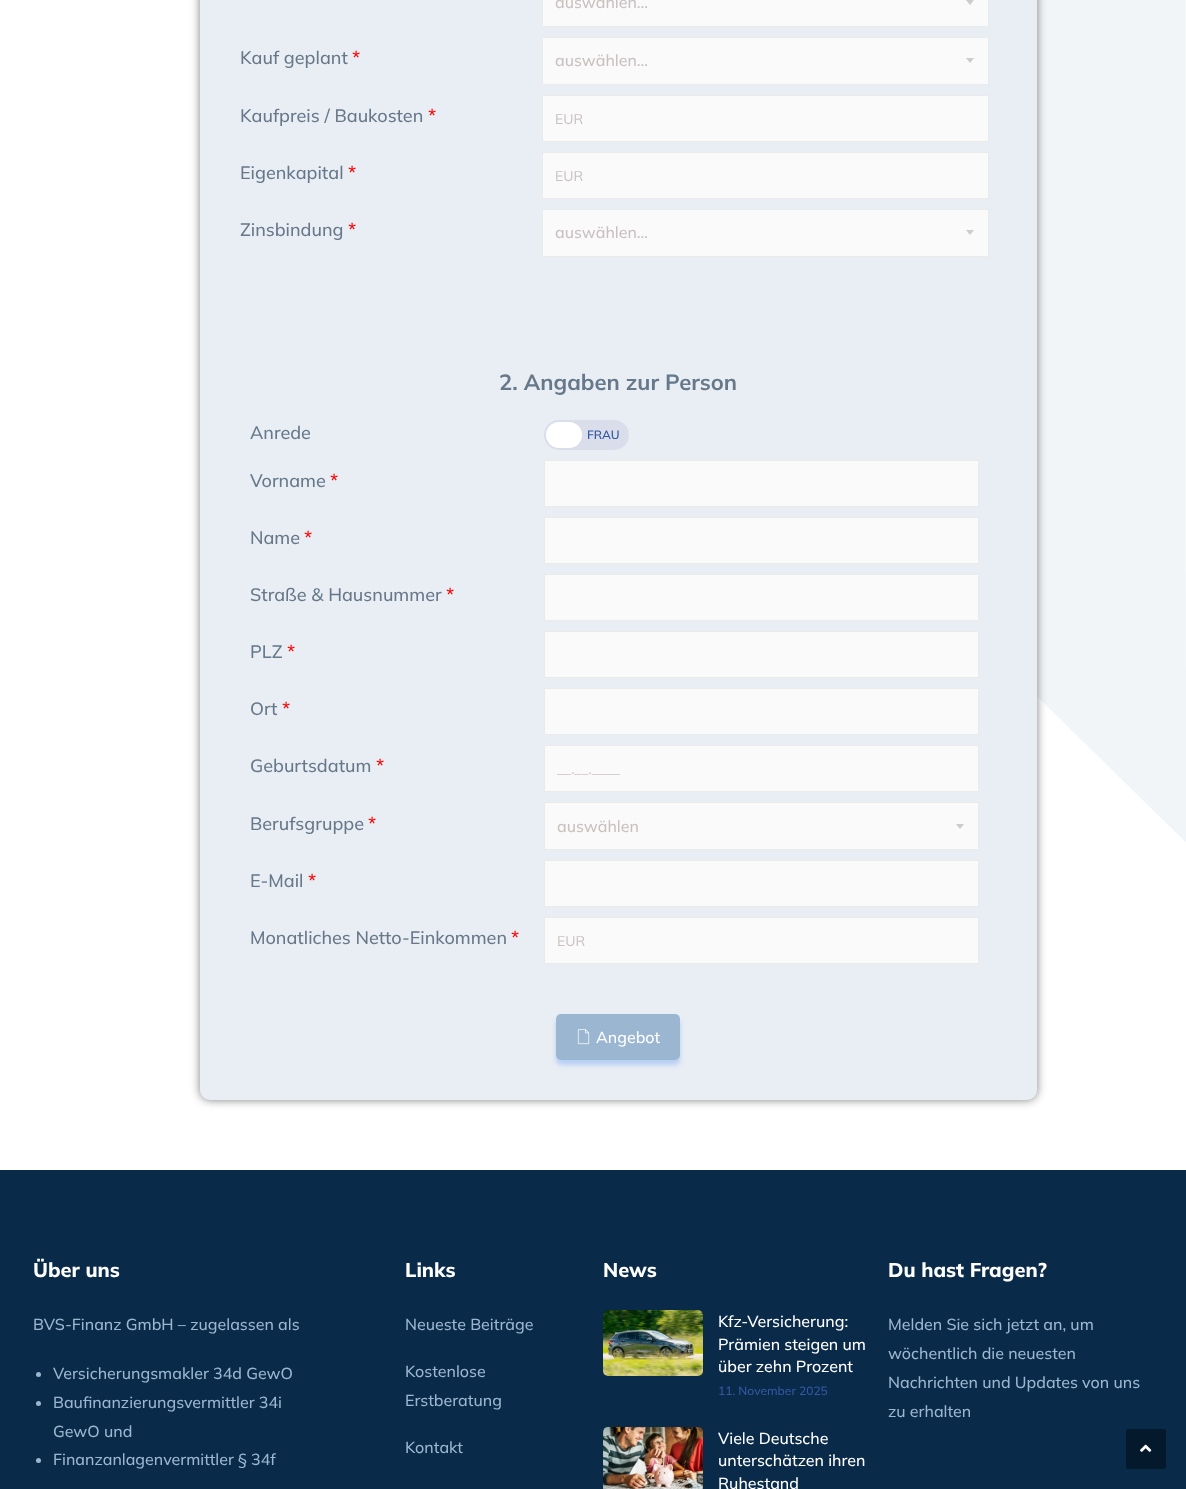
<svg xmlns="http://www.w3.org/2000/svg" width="1186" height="1489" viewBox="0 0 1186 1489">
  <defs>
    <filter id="blur1" x="-50%" y="-200%" width="200%" height="500%"><feGaussianBlur stdDeviation="5"/></filter>
    <filter id="blur2" x="-50%" y="-200%" width="200%" height="500%"><feGaussianBlur stdDeviation="2.5"/></filter>
  </defs>
  <rect width="100%" height="100%" fill="#ffffff"/>
  <image x="1037" y="0" width="149" height="842" href="img1.png"/>
  <rect x="200" y="-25" width="837" height="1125" rx="10" fill="#000000" fill-opacity="0.5" filter="url(#blur1)"/>
  <rect x="200" y="-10" width="837" height="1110" rx="10" fill="#e9eef4"/>
  <rect x="542.5" y="-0.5" width="446" height="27" fill="#fafafa" stroke="#eaeaea"/>
  <text x="555" y="8" font-family="Mulish" font-size="16" font-weight="500" fill="#c9c1c1">auswählen...</text>
  <path d="M966 0H974L970 5Z" fill="#cccccc"/>
  <text x="240" y="64" font-family="Mulish" font-size="18" font-weight="500" fill="#66788a">Kauf geplant</text>
  <text x="352" y="64" font-family="Mulish" font-size="18" font-weight="500" fill="#ff0000">*</text>
  <rect x="542.5" y="37.5" width="446" height="47" fill="#fafafa" stroke="#eaeaea"/>
  <text x="555" y="66" font-family="Mulish" font-size="16" font-weight="500" fill="#c9c1c1">auswählen...</text>
  <path d="M966 58H974L970 63Z" fill="#cccccc"/>
  <text x="240" y="122" font-family="Mulish" font-size="18" font-weight="500" fill="#66788a">Kaufpreis / Baukosten</text>
  <text x="428" y="122" font-family="Mulish" font-size="18" font-weight="500" fill="#ff0000">*</text>
  <rect x="542.5" y="95.5" width="446" height="46" fill="#fafafa" stroke="#eaeaea"/>
  <text x="555" y="124" font-family="Mulish" font-size="14" fill="#c9c1c1">EUR</text>
  <text x="240" y="179" font-family="Mulish" font-size="18" font-weight="500" fill="#66788a">Eigenkapital</text>
  <text x="348" y="179" font-family="Mulish" font-size="18" font-weight="500" fill="#ff0000">*</text>
  <rect x="542.5" y="152.5" width="446" height="46" fill="#fafafa" stroke="#eaeaea"/>
  <text x="555" y="181" font-family="Mulish" font-size="14" fill="#c9c1c1">EUR</text>
  <text x="240" y="236" font-family="Mulish" font-size="18" font-weight="500" fill="#66788a">Zinsbindung</text>
  <text x="348" y="236" font-family="Mulish" font-size="18" font-weight="500" fill="#ff0000">*</text>
  <rect x="542.5" y="209.5" width="446" height="47" fill="#fafafa" stroke="#eaeaea"/>
  <text x="555" y="238" font-family="Mulish" font-size="16" font-weight="500" fill="#c9c1c1">auswählen...</text>
  <path d="M966 230H974L970 235Z" fill="#cccccc"/>
  <text x="499" y="390" font-family="Mulish" font-size="22" font-weight="bold" fill="#66788a">2. Angaben zur Person</text>
  <text x="250" y="439" font-family="Mulish" font-size="18" font-weight="500" fill="#66788a">Anrede</text>
  <rect x="544" y="420" width="85" height="30" rx="15" fill="#dadeea"/>
  <rect x="546" y="422" width="36" height="26" rx="13" fill="#ffffff"/>
  <text x="587" y="439" font-family="Mulish" font-size="12" font-weight="600" fill="#3459a5">FRAU</text>
  <text x="250" y="487" font-family="Mulish" font-size="18" font-weight="500" fill="#66788a">Vorname</text>
  <text x="330" y="487" font-family="Mulish" font-size="18" font-weight="500" fill="#ff0000">*</text>
  <rect x="544.5" y="460.5" width="434" height="46" fill="#fafafa" stroke="#eaeaea"/>
  <text x="250" y="544" font-family="Mulish" font-size="18" font-weight="500" fill="#66788a">Name</text>
  <text x="304" y="544" font-family="Mulish" font-size="18" font-weight="500" fill="#ff0000">*</text>
  <rect x="544.5" y="517.5" width="434" height="46" fill="#fafafa" stroke="#eaeaea"/>
  <text x="250" y="601" font-family="Mulish" font-size="18" font-weight="500" fill="#66788a">Straße &amp; Hausnummer</text>
  <text x="446" y="601" font-family="Mulish" font-size="18" font-weight="500" fill="#ff0000">*</text>
  <rect x="544.5" y="574.5" width="434" height="46" fill="#fafafa" stroke="#eaeaea"/>
  <text x="250" y="658" font-family="Mulish" font-size="18" font-weight="500" fill="#66788a">PLZ</text>
  <text x="287" y="658" font-family="Mulish" font-size="18" font-weight="500" fill="#ff0000">*</text>
  <rect x="544.5" y="631.5" width="434" height="46" fill="#fafafa" stroke="#eaeaea"/>
  <text x="250" y="715" font-family="Mulish" font-size="18" font-weight="500" fill="#66788a">Ort</text>
  <text x="282" y="715" font-family="Mulish" font-size="18" font-weight="500" fill="#ff0000">*</text>
  <rect x="544.5" y="688.5" width="434" height="46" fill="#fafafa" stroke="#eaeaea"/>
  <text x="250" y="772" font-family="Mulish" font-size="18" font-weight="500" fill="#66788a">Geburtsdatum</text>
  <text x="376" y="772" font-family="Mulish" font-size="18" font-weight="500" fill="#ff0000">*</text>
  <rect x="544.5" y="745.5" width="434" height="46" fill="#fafafa" stroke="#eaeaea"/>
  <text x="557" y="774" font-family="Mulish" font-size="14" fill="#c9c1c1">__.__.____</text>
  <text x="250" y="830" font-family="Mulish" font-size="18" font-weight="500" fill="#66788a">Berufsgruppe</text>
  <text x="368" y="830" font-family="Mulish" font-size="18" font-weight="500" fill="#ff0000">*</text>
  <rect x="544.5" y="802.5" width="434" height="47" fill="#fafafa" stroke="#eaeaea"/>
  <text x="557" y="832" font-family="Mulish" font-size="16" font-weight="500" fill="#c9c1c1">auswählen</text>
  <path d="M956 824H964L960 829Z" fill="#cccccc"/>
  <text x="250" y="887" font-family="Mulish" font-size="18" font-weight="500" fill="#66788a">E-Mail</text>
  <text x="308" y="887" font-family="Mulish" font-size="18" font-weight="500" fill="#ff0000">*</text>
  <rect x="544.5" y="860.5" width="434" height="46" fill="#fafafa" stroke="#eaeaea"/>
  <text x="250" y="944" font-family="Mulish" font-size="18" font-weight="500" fill="#66788a">Monatliches Netto-Einkommen</text>
  <text x="511" y="944" font-family="Mulish" font-size="18" font-weight="500" fill="#ff0000">*</text>
  <rect x="544.5" y="917.5" width="434" height="46" fill="#fafafa" stroke="#eaeaea"/>
  <text x="557" y="946" font-family="Mulish" font-size="14" fill="#c9c1c1">EUR</text>
  <rect x="556" y="1019" width="124" height="46" rx="5" fill="#4285f4" fill-opacity="0.3" filter="url(#blur2)"/>
  <rect x="556" y="1014" width="124" height="46" rx="5" fill="#9bb6d0"/>
  <image x="577" y="1029" width="13" height="16" href="img2.png"/>
  <text x="596" y="1043" font-family="Mulish" font-size="16" font-weight="500" fill="#ffffff">Angebot</text>
  <rect x="0" y="1170" width="1186" height="319" fill="#092a49"/>
  <text x="33" y="1277" font-family="Mulish" font-size="20" font-weight="800" fill="#ffffff">Über uns</text>
  <text x="33" y="1330" font-family="Mulish" font-size="16" font-weight="500" fill="#9bb6d0">BVS-Finanz GmbH – zugelassen als</text>
  <circle cx="38.5" cy="1374.5" r="2.5" fill="#9bb6d0"/>
  <text x="53" y="1379" font-family="Mulish" font-size="16" font-weight="500" fill="#9bb6d0">Versicherungsmakler 34d GewO</text>
  <circle cx="38.5" cy="1403.5" r="2.5" fill="#9bb6d0"/>
  <text x="53" y="1408" font-family="Mulish" font-size="16" font-weight="500" fill="#9bb6d0">Baufinanzierungsvermittler 34i</text>
  <text x="53" y="1437" font-family="Mulish" font-size="16" font-weight="500" fill="#9bb6d0">GewO und</text>
  <circle cx="38.5" cy="1460.5" r="2.5" fill="#9bb6d0"/>
  <text x="53" y="1465" font-family="Mulish" font-size="16" font-weight="500" fill="#9bb6d0">Finanzanlagenvermittler § 34f</text>
  <text x="405" y="1277" font-family="Mulish" font-size="20" font-weight="800" fill="#ffffff">Links</text>
  <text x="405" y="1330" font-family="Mulish" font-size="16" font-weight="500" fill="#9bb6d0">Neueste Beiträge</text>
  <text x="405" y="1377" font-family="Mulish" font-size="16" font-weight="500" fill="#9bb6d0">Kostenlose</text>
  <text x="405" y="1406" font-family="Mulish" font-size="16" font-weight="500" fill="#9bb6d0">Erstberatung</text>
  <text x="405" y="1453" font-family="Mulish" font-size="16" font-weight="500" fill="#9bb6d0">Kontakt</text>
  <text x="603" y="1277" font-family="Mulish" font-size="20" font-weight="800" fill="#ffffff">News</text>
  <image x="603" y="1310" width="100" height="66" href="img3.png"/>
  <text x="718" y="1327" font-family="Mulish" font-size="16" font-weight="500" fill="#ffffff">Kfz-Versicherung:</text>
  <text x="718" y="1350" font-family="Mulish" font-size="16" font-weight="500" fill="#ffffff">Prämien steigen um</text>
  <text x="718" y="1372" font-family="Mulish" font-size="16" font-weight="500" fill="#ffffff">über zehn Prozent</text>
  <text x="718" y="1395" font-family="Mulish" font-size="12" font-weight="500" fill="#3459a5">11. November 2025</text>
  <image x="603" y="1427" width="100" height="62" href="img4.png"/>
  <text x="718" y="1444" font-family="Mulish" font-size="16" font-weight="500" fill="#ffffff">Viele Deutsche</text>
  <text x="718" y="1466" font-family="Mulish" font-size="16" font-weight="500" fill="#ffffff">unterschätzen ihren</text>
  <text x="718" y="1489" font-family="Mulish" font-size="16" font-weight="500" fill="#ffffff">Ruhestand</text>
  <text x="888" y="1277" font-family="Mulish" font-size="20" font-weight="800" fill="#ffffff">Du hast Fragen?</text>
  <text x="888" y="1330" font-family="Mulish" font-size="16" font-weight="500" fill="#9bb6d0">Melden Sie sich jetzt an, um</text>
  <text x="888" y="1359" font-family="Mulish" font-size="16" font-weight="500" fill="#9bb6d0">wöchentlich die neuesten</text>
  <text x="888" y="1388" font-family="Mulish" font-size="16" font-weight="500" fill="#9bb6d0">Nachrichten und Updates von uns</text>
  <text x="888" y="1417" font-family="Mulish" font-size="16" font-weight="500" fill="#9bb6d0">zu erhalten</text>
  <rect x="1126" y="1429" width="40" height="40" rx="2" fill="#05192c"/>
  <image x="1140" y="1444" width="12" height="8" href="img5.png"/>
</svg>
